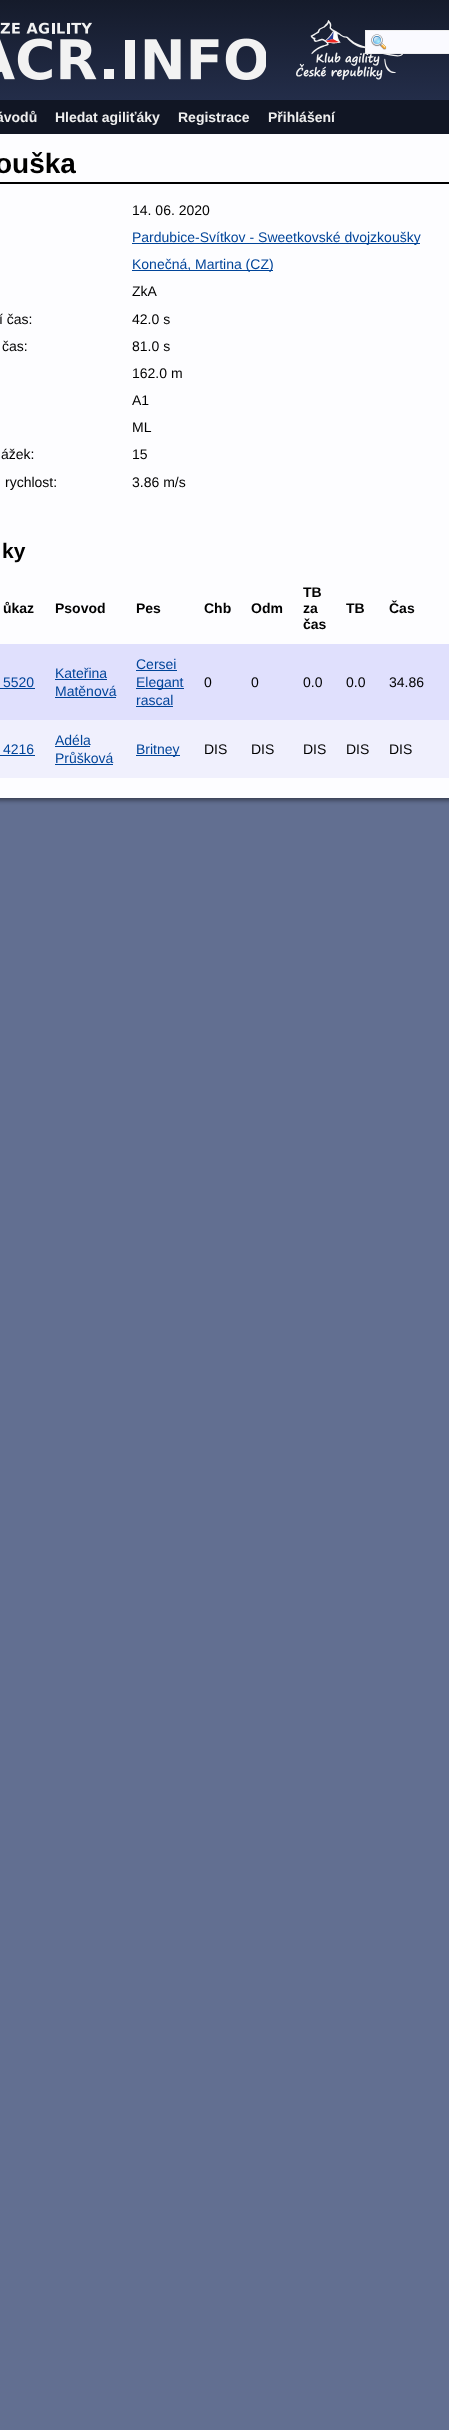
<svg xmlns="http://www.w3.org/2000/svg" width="449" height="2430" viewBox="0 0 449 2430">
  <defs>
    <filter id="blur1" x="-50%" y="-200%" width="200%" height="500%"><feGaussianBlur stdDeviation="2.5"/></filter>
    <linearGradient id="g1" gradientUnits="userSpaceOnUse" x1="225" y1="100" x2="225" y2="0"><stop offset="0" stop-color="#232d49"/><stop offset="1" stop-color="#151b2b"/></linearGradient>
  </defs>
  <rect width="100%" height="100%" fill="#626f91"/>
  <rect x="-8" y="-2" width="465" height="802" fill="#000000" fill-opacity="0.5" filter="url(#blur1)"/>
  <rect x="0" y="0" width="449" height="100" fill="url(#g1)"/>
  <image x="0" y="22" width="266" height="58" href="img1.png"/>
  <image x="296" y="20" width="107" height="60" href="img2.png"/>
  <rect x="0" y="100" width="449" height="34" fill="#111624"/>
  <rect x="366" y="31" width="83" height="22" fill="#fafaff"/>
  <image x="371" y="34" width="16" height="16" href="img3.png"/>
  <rect x="365.5" y="30.5" width="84" height="23" fill="none" stroke="#eeeeee"/>
  <text x="-4" y="122" font-family="Liberation Sans" font-size="14" font-weight="bold" fill="#eeeeee">ávodů</text>
  <text x="55" y="122" font-family="Liberation Sans" font-size="14" font-weight="bold" fill="#eeeeee">Hledat agiliťáky</text>
  <text x="178" y="122" font-family="Liberation Sans" font-size="14" font-weight="bold" fill="#eeeeee">Registrace</text>
  <text x="268" y="122" font-family="Liberation Sans" font-size="14" font-weight="bold" fill="#eeeeee">Přihlášení</text>
  <rect x="0" y="134" width="449" height="664" fill="#fdfdff"/>
  <rect x="0" y="182" width="449" height="2" fill="#000000"/>
  <text x="-5" y="173" font-family="Liberation Sans" font-size="28" font-weight="bold" fill="#000000">ouška</text>
  <text x="132" y="215" font-family="Liberation Sans" font-size="14" fill="#000000">14. 06. 2020</text>
  <rect x="132" y="243" width="288" height="1" fill="#004499"/>
  <text x="132" y="242" font-family="Liberation Sans" font-size="14" fill="#004499">Pardubice-Svítkov - Sweetkovské dvojzkoušky</text>
  <rect x="132" y="270" width="141" height="1" fill="#004499"/>
  <text x="132" y="269" font-family="Liberation Sans" font-size="14" fill="#004499">Konečná, Martina (CZ)</text>
  <text x="132" y="296" font-family="Liberation Sans" font-size="14" fill="#000000">ZkA</text>
  <text x="-1" y="324" font-family="Liberation Sans" font-size="14" fill="#000000">í čas:</text>
  <text x="132" y="324" font-family="Liberation Sans" font-size="14" fill="#000000">42.0 s</text>
  <text x="2" y="351" font-family="Liberation Sans" font-size="14" fill="#000000">čas:</text>
  <text x="132" y="351" font-family="Liberation Sans" font-size="14" fill="#000000">81.0 s</text>
  <text x="132" y="378" font-family="Liberation Sans" font-size="14" fill="#000000">162.0 m</text>
  <text x="132" y="405" font-family="Liberation Sans" font-size="14" fill="#000000">A1</text>
  <text x="132" y="432" font-family="Liberation Sans" font-size="14" fill="#000000">ML</text>
  <text x="1" y="459" font-family="Liberation Sans" font-size="14" fill="#000000">ážek:</text>
  <text x="132" y="459" font-family="Liberation Sans" font-size="14" fill="#000000">15</text>
  <text x="5" y="487" font-family="Liberation Sans" font-size="14" fill="#000000">rychlost:</text>
  <text x="132" y="487" font-family="Liberation Sans" font-size="14" fill="#000000">3.86 m/s</text>
  <text x="2" y="558" font-family="Liberation Sans" font-size="21" font-weight="bold" fill="#000000">ky</text>
  <text x="3" y="613" font-family="Liberation Sans" font-size="14" font-weight="bold" fill="#000000">ůkaz</text>
  <text x="55" y="613" font-family="Liberation Sans" font-size="14" font-weight="bold" fill="#000000">Psovod</text>
  <text x="136" y="613" font-family="Liberation Sans" font-size="14" font-weight="bold" fill="#000000">Pes</text>
  <text x="204" y="613" font-family="Liberation Sans" font-size="14" font-weight="bold" fill="#000000">Chb</text>
  <text x="251" y="613" font-family="Liberation Sans" font-size="14" font-weight="bold" fill="#000000">Odm</text>
  <text x="303" y="597" font-family="Liberation Sans" font-size="14" font-weight="bold" fill="#000000">TB</text>
  <text x="303" y="613" font-family="Liberation Sans" font-size="14" font-weight="bold" fill="#000000">za</text>
  <text x="303" y="629" font-family="Liberation Sans" font-size="14" font-weight="bold" fill="#000000">čas</text>
  <text x="346" y="613" font-family="Liberation Sans" font-size="14" font-weight="bold" fill="#000000">TB</text>
  <text x="389" y="613" font-family="Liberation Sans" font-size="14" font-weight="bold" fill="#000000">Čas</text>
  <rect x="0" y="644" width="449" height="76" fill="#e0e0fd"/>
  <text x="3" y="687" font-family="Liberation Sans" font-size="14" fill="#004499">5520</text>
  <rect x="0" y="688" width="35" height="1" fill="#004499"/>
  <text x="55" y="678" font-family="Liberation Sans" font-size="14" fill="#004499">Kateřina</text>
  <rect x="55" y="679" width="52" height="1" fill="#004499"/>
  <text x="55" y="696" font-family="Liberation Sans" font-size="14" fill="#004499">Matěnová</text>
  <rect x="55" y="697" width="61" height="1" fill="#004499"/>
  <text x="136" y="669" font-family="Liberation Sans" font-size="14" fill="#004499">Cersei</text>
  <rect x="136" y="670" width="41" height="1" fill="#004499"/>
  <rect x="136" y="688" width="48" height="1" fill="#004499"/>
  <text x="136" y="687" font-family="Liberation Sans" font-size="14" fill="#004499">Elegant</text>
  <text x="136" y="705" font-family="Liberation Sans" font-size="14" fill="#004499">rascal</text>
  <rect x="136" y="706" width="37" height="1" fill="#004499"/>
  <text x="204" y="687" font-family="Liberation Sans" font-size="14" fill="#000000">0</text>
  <text x="251" y="687" font-family="Liberation Sans" font-size="14" fill="#000000">0</text>
  <text x="303" y="687" font-family="Liberation Sans" font-size="14" fill="#000000">0.0</text>
  <text x="346" y="687" font-family="Liberation Sans" font-size="14" fill="#000000">0.0</text>
  <text x="389" y="687" font-family="Liberation Sans" font-size="14" fill="#000000">34.86</text>
  <rect x="0" y="720" width="449" height="58" fill="#f0f0fd"/>
  <text x="3" y="754" font-family="Liberation Sans" font-size="14" fill="#004499">4216</text>
  <rect x="0" y="755" width="35" height="1" fill="#004499"/>
  <text x="55" y="745" font-family="Liberation Sans" font-size="14" fill="#004499">Adéla</text>
  <rect x="55" y="746" width="35" height="1" fill="#004499"/>
  <text x="55" y="763" font-family="Liberation Sans" font-size="14" fill="#004499">Průšková</text>
  <rect x="55" y="764" width="58" height="1" fill="#004499"/>
  <rect x="136" y="755" width="44" height="1" fill="#004499"/>
  <text x="136" y="754" font-family="Liberation Sans" font-size="14" fill="#004499">Britney</text>
  <text x="204" y="754" font-family="Liberation Sans" font-size="14" fill="#000000">DIS</text>
  <text x="251" y="754" font-family="Liberation Sans" font-size="14" fill="#000000">DIS</text>
  <text x="303" y="754" font-family="Liberation Sans" font-size="14" fill="#000000">DIS</text>
  <text x="346" y="754" font-family="Liberation Sans" font-size="14" fill="#000000">DIS</text>
  <text x="389" y="754" font-family="Liberation Sans" font-size="14" fill="#000000">DIS</text>
</svg>
